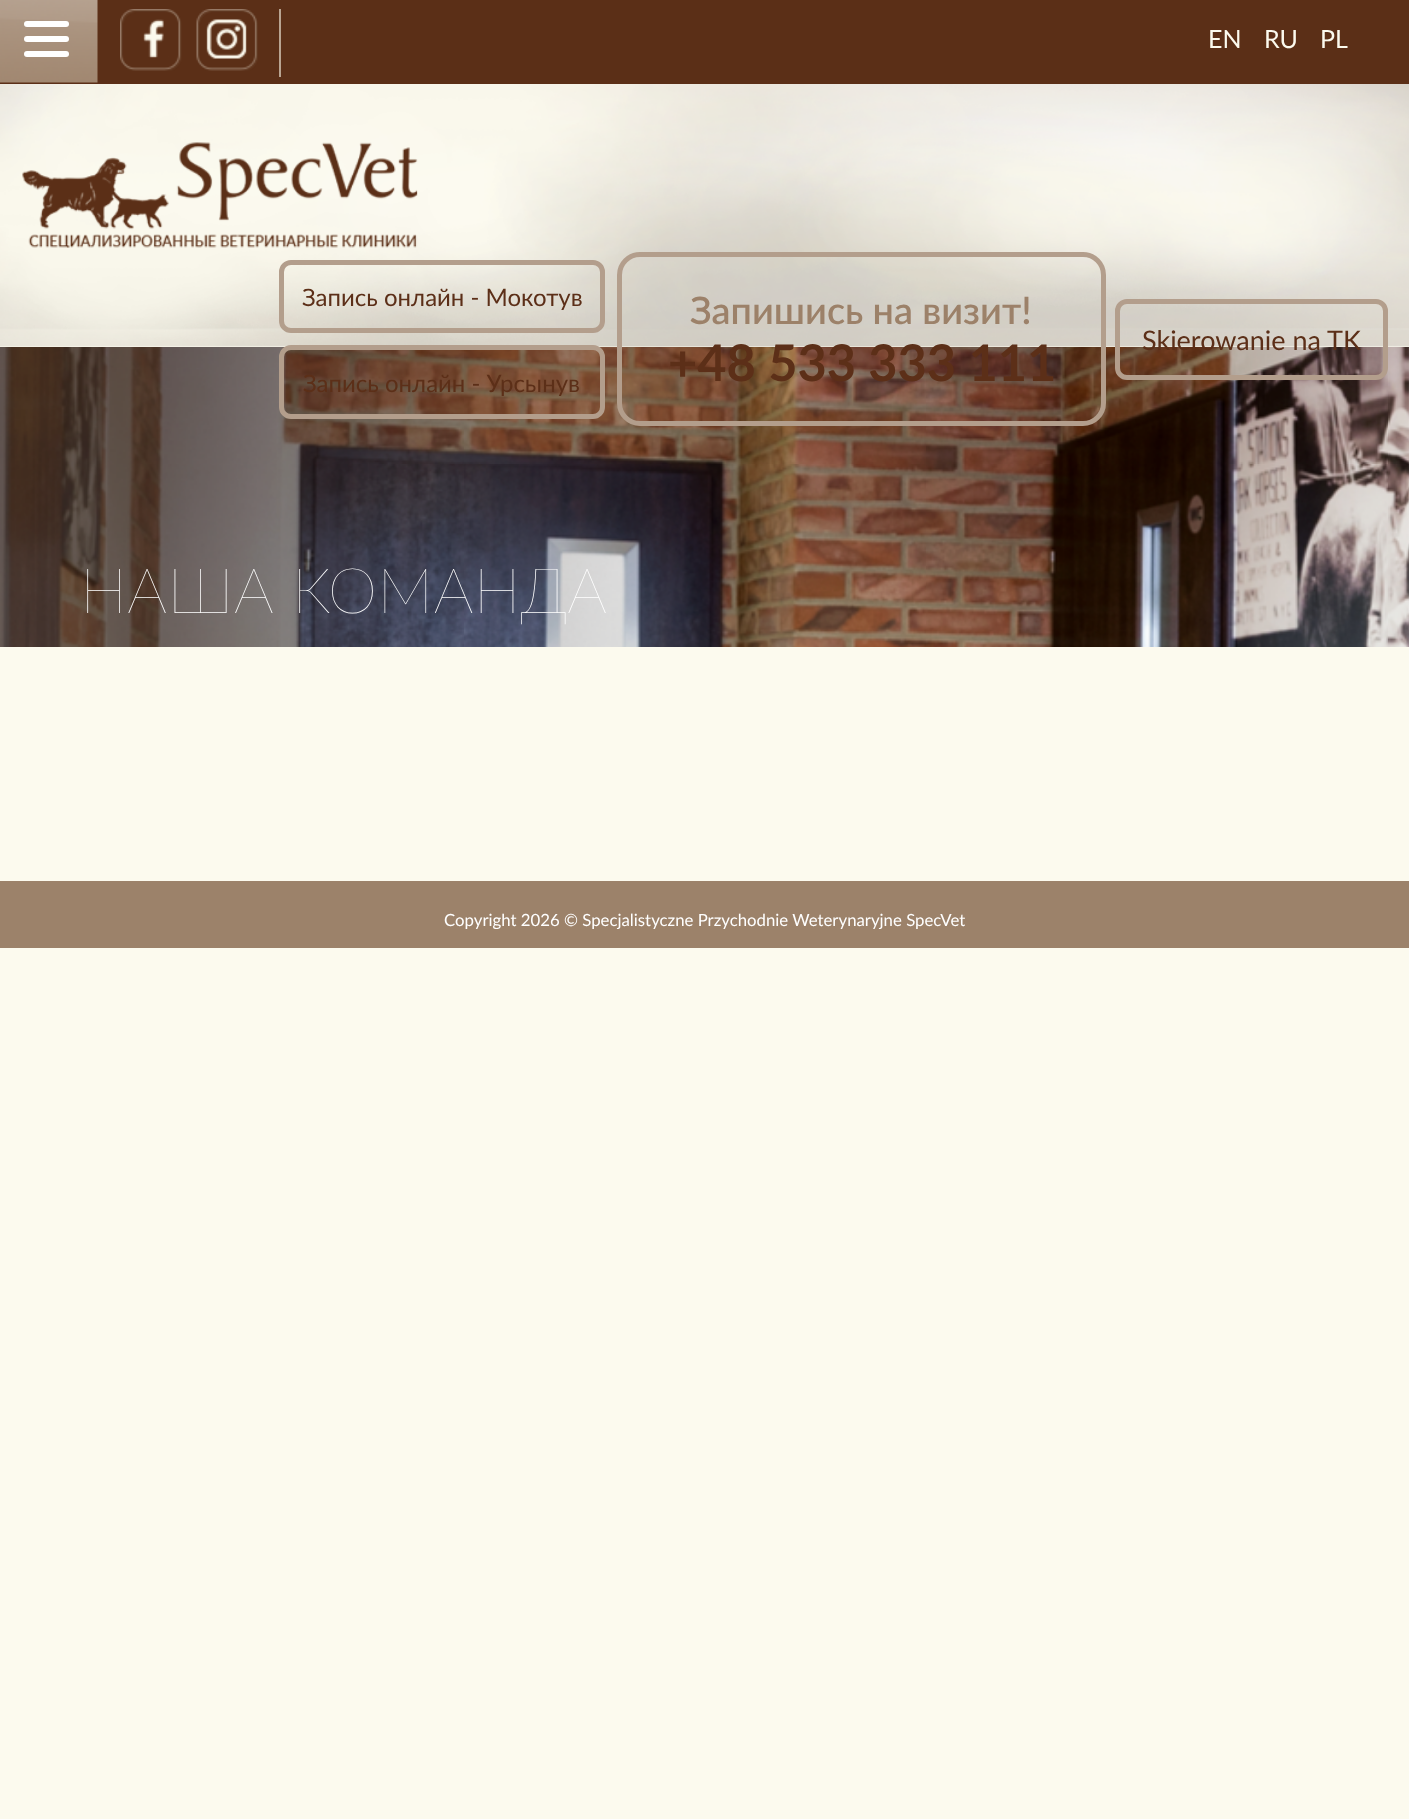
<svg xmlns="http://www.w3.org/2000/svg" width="1409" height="1819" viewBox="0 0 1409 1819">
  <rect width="100%" height="100%" fill="#fcfaee"/>
  <rect x="0" y="0" width="1409" height="84" fill="#5b2f17"/>
  <image x="0" y="0" width="98" height="83" href="img1.png"/>
  <rect x="24" y="21" width="45" height="6" rx="3" fill="#ffffff"/>
  <rect x="24" y="36" width="45" height="6" rx="3" fill="#ffffff"/>
  <rect x="24" y="51" width="45" height="6" rx="3" fill="#ffffff"/>
  <rect x="279" y="9" width="2" height="68" fill="#b9a592"/>
  <image x="120" y="9" width="62" height="62" href="img2.png"/>
  <image x="196" y="9" width="62" height="62" href="img3.png"/>
  <text x="1208" y="48" font-family="Lato" font-size="25" fill="#fcfaee">EN</text>
  <text x="1264" y="48" font-family="Lato" font-size="25" fill="#fcfaee">RU</text>
  <text x="1320" y="48" font-family="Lato" font-size="25" fill="#fcfaee">PL</text>
  <image x="0" y="84" width="1409" height="263" href="img4.png"/>
  <image x="22" y="142" width="396" height="106" href="img5.png"/>
  <rect x="281.5" y="262.5" width="321" height="68" rx="9.5" fill="none" stroke="#b39e8c" stroke-width="5"/>
  <text x="302" y="306" font-family="Lato" font-size="24" fill="#5c2f18">Запись онлайн - Мокотув</text>
  <image x="0" y="347" width="1409" height="300" href="img6.png"/>
  <rect x="281.5" y="347.5" width="321" height="69" rx="9.5" fill="none" stroke="#b39e8c" stroke-width="5"/>
  <text x="303" y="392" font-family="Lato" font-size="24" fill="#5c2f18">Запись онлайн - Урсынув</text>
  <rect x="619.5" y="254.5" width="484" height="169" rx="20.5" fill="none" stroke="#b39e8c" stroke-width="5"/>
  <text x="690" y="324" font-family="Lato" font-size="37.75" font-weight="600" fill="#9c8169">Запишись на визит!</text>
  <text x="668" y="381" font-family="Lato" font-size="50.5" font-weight="bold" fill="#5c2f18">+48 533 333 111</text>
  <rect x="1117.5" y="301.5" width="268" height="76" rx="9.5" fill="none" stroke="#b39e8c" stroke-width="5"/>
  <text x="1142" y="350" font-family="Lato" font-size="27" fill="#5c2f18">Skierowanie na TK</text>
  <text x="80" y="613" font-family="Lato" font-size="63" font-weight="200" fill="#ffffff">НАША КОМАНДА</text>
  <rect x="0" y="881" width="1409" height="67" fill="#9c826a"/>
  <text x="444" y="926" font-family="Lato" font-size="16.8" fill="#ffffff">Copyright 2026 © Specjalistyczne Przychodnie Weterynaryjne SpecVet</text>
</svg>
